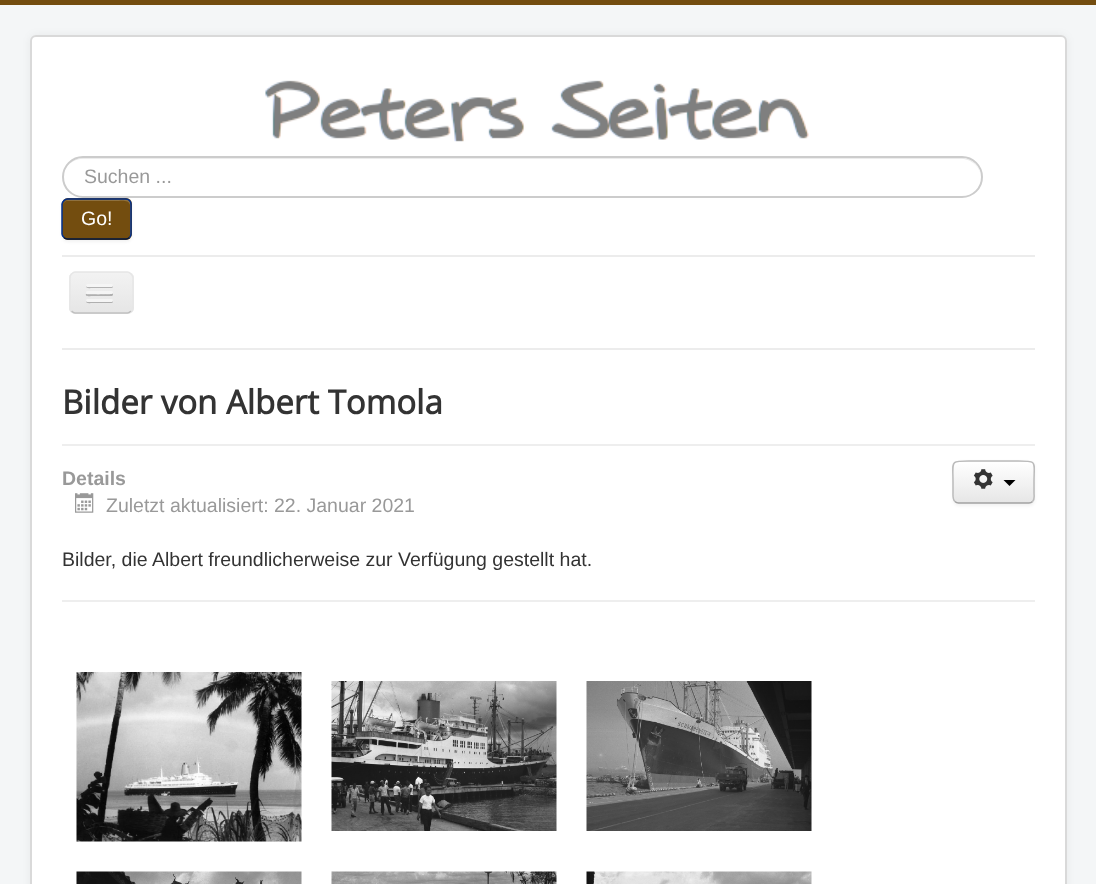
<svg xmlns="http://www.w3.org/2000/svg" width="1096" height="884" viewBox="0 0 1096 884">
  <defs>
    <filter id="blur1" x="-50%" y="-200%" width="200%" height="500%"><feGaussianBlur stdDeviation="4.5"/></filter>
    <filter id="blur2" x="-50%" y="-200%" width="200%" height="500%"><feGaussianBlur stdDeviation="1.5"/></filter>
    <clipPath id="clip1"><rect x="69" y="272" width="65" height="42" rx="6"/></clipPath>
    <linearGradient id="g1" gradientUnits="userSpaceOnUse" x1="101" y1="273" x2="101" y2="312"><stop offset="0" stop-color="#f2f2f2"/><stop offset="1" stop-color="#e6e6e6"/></linearGradient>
    <clipPath id="clip2"><rect x="953" y="461" width="82" height="43" rx="6"/></clipPath>
    <linearGradient id="g2" gradientUnits="userSpaceOnUse" x1="994" y1="462" x2="994" y2="503"><stop offset="0" stop-color="#ffffff"/><stop offset="1" stop-color="#e6e6e6"/></linearGradient>
  </defs>
  <rect width="100%" height="100%" fill="#f4f6f7"/>
  <rect x="0" y="0" width="1096" height="5" fill="#734d0f"/>
  <rect x="30" y="35" width="1037" height="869" rx="6" fill="#000000" fill-opacity="0.05" filter="url(#blur1)"/>
  <rect x="30" y="35" width="1037" height="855" rx="6" fill="#ffffff"/>
  <rect x="31" y="36" width="1035" height="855" rx="5" fill="none" stroke="#000000" stroke-opacity="0.15" stroke-width="2"/>
  <image x="265" y="80" width="544" height="62" href="img1.png"/>
  <path d="M82 159H962C972 159 981 168 981 178C981 167 972 158 962 158H82C72 158 63 167 63 178C63 168 72 159 82 159Z" fill="#ececec"/>
  <rect x="63" y="157" width="919" height="40" rx="20" fill="none" stroke="#cccccc" stroke-width="2"/>
  <text x="84" y="183" font-family="Liberation Sans" font-size="19.5" fill="#999999">Suchen ...</text>
  <rect x="62" y="200" width="70" height="42" rx="6" fill="#000000" fill-opacity="0.05" filter="url(#blur2)"/>
  <rect x="62" y="198" width="70" height="42" rx="6" fill="#734d0f"/>
  <path d="M68 201H116C120 201 129 199 130 205V237C132 235 131 232 131 229V220C131 195 133 200 107 200H78C72 200 63 198 63 206C63 203 65 201 68 201Z" fill="#8f713f"/>
  <path d="M129.5 237.5C128.5 238.5 127.5 239 126 239H67.5C66 239 65 238.5 64 237.5" fill="none" stroke="#001641" stroke-width="1.5"/>
  <path d="M64 237.5C63 236.5 62 235.5 62 234V204C62 202.5 63 201.5 64 200.5C65 199.5 66 199 67.5 199H126C127.5 199 128.5 199.5 129.5 200.5C130.5 201.5 131 202.5 131 204V234C131 235.5 130.5 236.5 129.5 237.5" fill="none" stroke="#002f8d" stroke-width="1.5"/>
  <text x="81" y="225" font-family="Liberation Sans" font-size="19.5" fill="#ffffff">Go!</text>
  <rect x="62" y="255" width="973" height="2" fill="#ececec"/>
  <rect x="62" y="348" width="973" height="2" fill="#ececec"/>
  <rect x="69" y="272" width="65" height="42" rx="6" fill="#ededed"/>
  <g clip-path="url(#clip1)">
    <rect x="69" y="273" width="65" height="39" fill="url(#g1)"/>
  </g>
  <path d="M131 311C130 312 129 313 127.5 313H75C73.5 313 72.5 312 71.5 311" fill="none" stroke="#bfbfbf" stroke-width="1.5"/>
  <path d="M71.5 311C70.5 310 70 309 70 307.5V277.5C70 276 70.5 275 71.5 274C72.5 273 73.5 272 75 272H127.5C129 272 130 273 131 274C132 275 133 276 133 277.5V307.5C133 309 132 310 131 311" fill="none" stroke="#e6e6e6" stroke-width="1.5"/>
  <path d="M86 286C85.5 289 91 288 91.5 288H111.5C113 288 113.5 286 112.5 285.5L111.5 286.5C110 287 86.5 286.5 86 286Z" fill="#b3b3b3"/>
  <rect x="86" y="284" width="27" height="3" rx="1.5" fill="#f5f5f5"/>
  <path d="M86 294C84.5 297 91.5 296 91.5 296H112C113 295.5 113.5 294 112.5 293L111 294C109 294.5 87 294.5 86 294Z" fill="#b0b0b0"/>
  <rect x="86" y="291" width="27" height="3" rx="1.5" fill="#f5f5f5"/>
  <path d="M86 301C85.5 304 91 303 91.5 303H111.5C113 303 113.5 301 112.5 300.5L111.5 301.5C110 302 86.5 301.5 86 301Z" fill="#afafaf"/>
  <rect x="86" y="299" width="27" height="3" rx="1.5" fill="#f5f5f5"/>
  <rect x="62" y="444" width="973" height="2" fill="#eeeeee"/>
  <text x="62" y="414" font-family="Open Sans" font-size="33" font-weight="bold" fill="#333333">Bilder von Albert Tomola</text>
  <text x="62" y="485" font-family="Liberation Sans" font-size="19.5" font-weight="bold" fill="#999999">Details</text>
  <image x="75" y="493" width="19" height="20" href="img2.png"/>
  <text x="106" y="512" font-family="Liberation Sans" font-size="19.5" fill="#999999">Zuletzt aktualisiert: 22. Januar 2021</text>
  <rect x="953" y="462" width="82" height="44" rx="6" fill="#000000" fill-opacity="0.05" filter="url(#blur2)"/>
  <rect x="953" y="461" width="82" height="43" rx="6" fill="#f5f5f5"/>
  <g clip-path="url(#clip2)">
    <rect x="953" y="462" width="82" height="41" fill="url(#g2)"/>
  </g>
  <path d="M958 464H1029C1031 464 1034 466 1034 468C1034 459 1023 462 1017 462H971C965 462 954 459 954 468C954 466 956 464 958 464Z" fill="#ffffff"/>
  <path d="M1032.5 501.5C1031.5 502.5 1030.5 503 1029 503H958.5C957 503 956 502.5 955 501.5" fill="none" stroke="#a2a2a2" stroke-width="1.5"/>
  <path d="M955 501.5C952.5 499.5 953 495.5 953 493V482C953 460.5 949.5 461 970 461H1017C1038 461 1034 460.5 1034 482V493C1034 495.5 1035 499.5 1032.5 501.5" fill="none" stroke="#bbbbbb" stroke-width="1.5"/>
  <image x="973" y="469" width="20" height="20" href="img3.png"/>
  <path d="M1003.5 480H1015.5L1009.5 486Z" fill="#000000"/>
  <text x="62" y="566" font-family="Liberation Sans" font-size="19.5" fill="#333333">Bilder, die Albert freundlicherweise zur Verfügung gestellt hat.</text>
  <rect x="62" y="600" width="973" height="2" fill="#eeeeee"/>
  <image x="76" y="672" width="226" height="170" href="img4.png"/>
  <image x="331" y="681" width="226" height="150" href="img5.png"/>
  <image x="586" y="681" width="226" height="150" href="img6.png"/>
  <image x="76" y="871" width="226" height="13" href="img7.png"/>
  <image x="331" y="871" width="226" height="13" href="img8.png"/>
  <image x="586" y="871" width="226" height="13" href="img9.png"/>
</svg>
